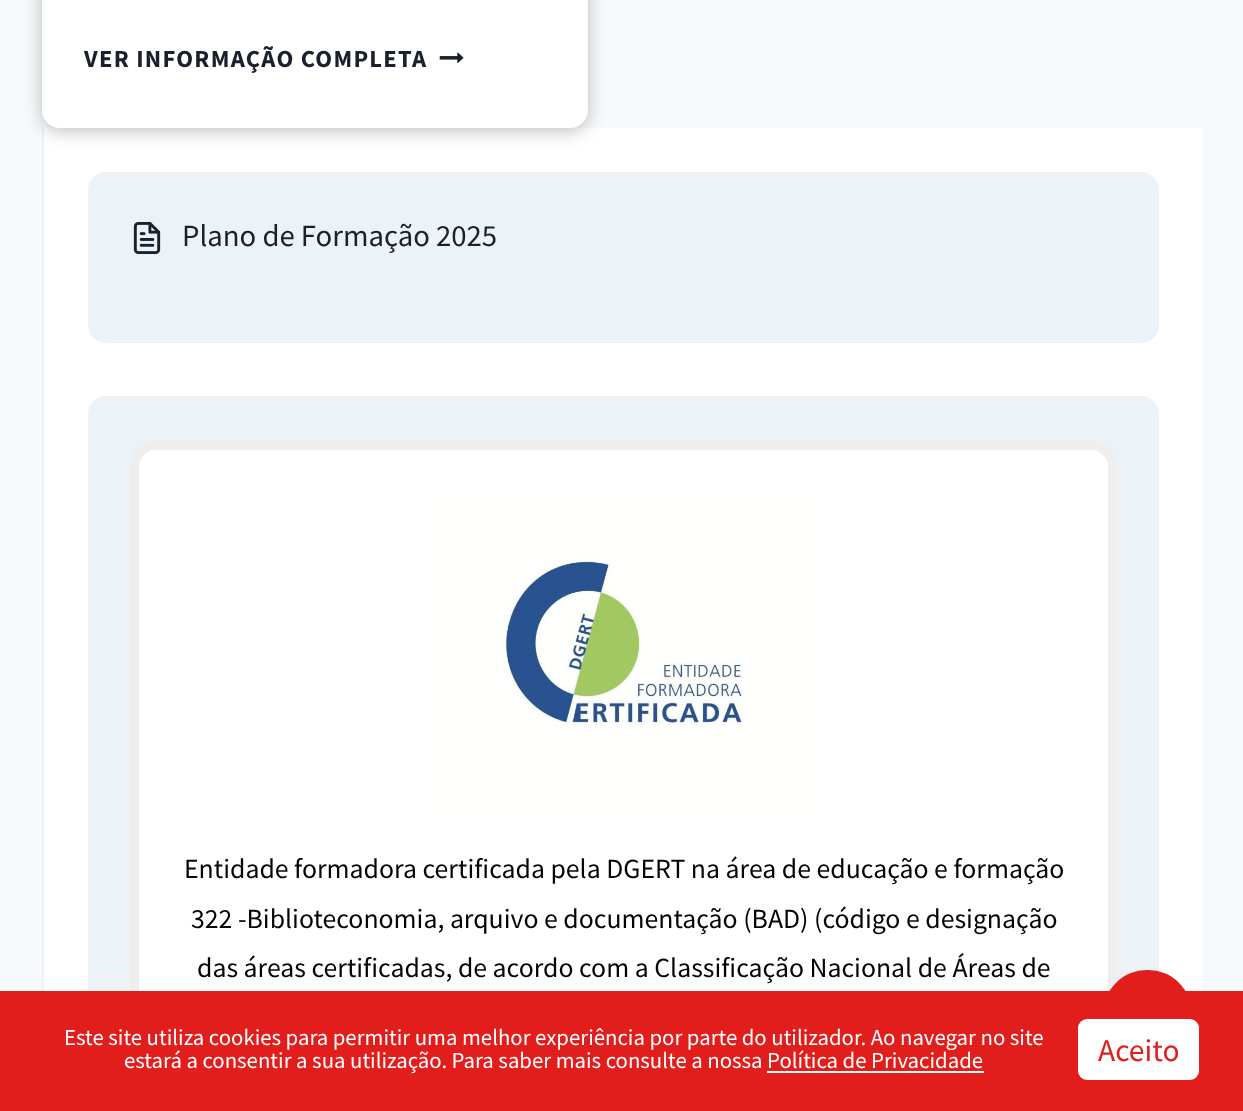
<svg xmlns="http://www.w3.org/2000/svg" width="1243" height="1111" viewBox="0 0 1243 1111">
  <defs>
    <filter id="blur1" x="-50%" y="-200%" width="200%" height="500%"><feGaussianBlur stdDeviation="9"/></filter>
  </defs>
  <rect width="100%" height="100%" fill="#f7fafc"/>
  <rect x="44" y="128" width="1158" height="863" fill="#ffffff"/>
  <rect x="42" y="128" width="2" height="863" fill="#edf2f7"/>
  <rect x="42" y="-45" width="546" height="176" rx="18" fill="#000000" fill-opacity="0.25" filter="url(#blur1)"/>
  <rect x="42" y="-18" width="546" height="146" rx="18" fill="#ffffff"/>
  <text x="84" y="67" font-family="Source Sans Pro" font-size="24.6" font-weight="bold" letter-spacing="1.25" fill="#1a202c">VER INFORMAÇÃO COMPLETA</text>
  <image x="439" y="52" width="25" height="12" href="img1.png"/>
  <rect x="88" y="172" width="1071" height="171" rx="18" fill="#edf2f7"/>
  <image x="133" y="222" width="28" height="32" href="img2.png"/>
  <text x="182" y="246" font-family="Source Sans Pro" font-size="30.75" fill="#1a202c">Plano de Formação 2025</text>
  <rect x="88" y="396" width="1071" height="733" rx="18" fill="#edf2f7"/>
  <rect x="134.5" y="445.5" width="978" height="637" rx="21.5" fill="#ffffff" stroke="#eeeeee" stroke-width="9"/>
  <image x="422" y="485" width="402" height="339" href="img3.png"/>
  <text x="184" y="878" font-family="Source Sans Pro" font-size="27.75" fill="#050505">Entidade formadora certificada pela DGERT na área de educação e formação</text>
  <text x="191" y="928" font-family="Source Sans Pro" font-size="27.75" fill="#050505">322 -Biblioteconomia, arquivo e documentação (BAD) (código e designação</text>
  <text x="197" y="977" font-family="Source Sans Pro" font-size="27.75" fill="#050505">das áreas certificadas, de acordo com a Classificação Nacional de Áreas de</text>
  <rect x="1103" y="970" width="89" height="89" rx="44" fill="#e21e1d"/>
  <rect x="0" y="991" width="1243" height="120" fill="#e21e1d"/>
  <text x="64" y="1045" font-family="Source Sans Pro" font-size="22.75" fill="#ffffff">Este site utiliza cookies para permitir uma melhor experiência por parte do utilizador. Ao navegar no site</text>
  <text x="124" y="1068" font-family="Source Sans Pro" font-size="22.75" fill="#ffffff">estará a consentir a sua utilização. Para saber mais consulte a nossa Política de Privacidade</text>
  <rect x="767" y="1071" width="217" height="2" fill="#ffffff"/>
  <rect x="1079" y="1020" width="119" height="59" rx="8" fill="#ffffff" stroke="#ffffff" stroke-width="2"/>
  <text x="1098" y="1061" font-family="Source Sans Pro" font-size="31.5" fill="#e21e1d">Aceito</text>
</svg>
